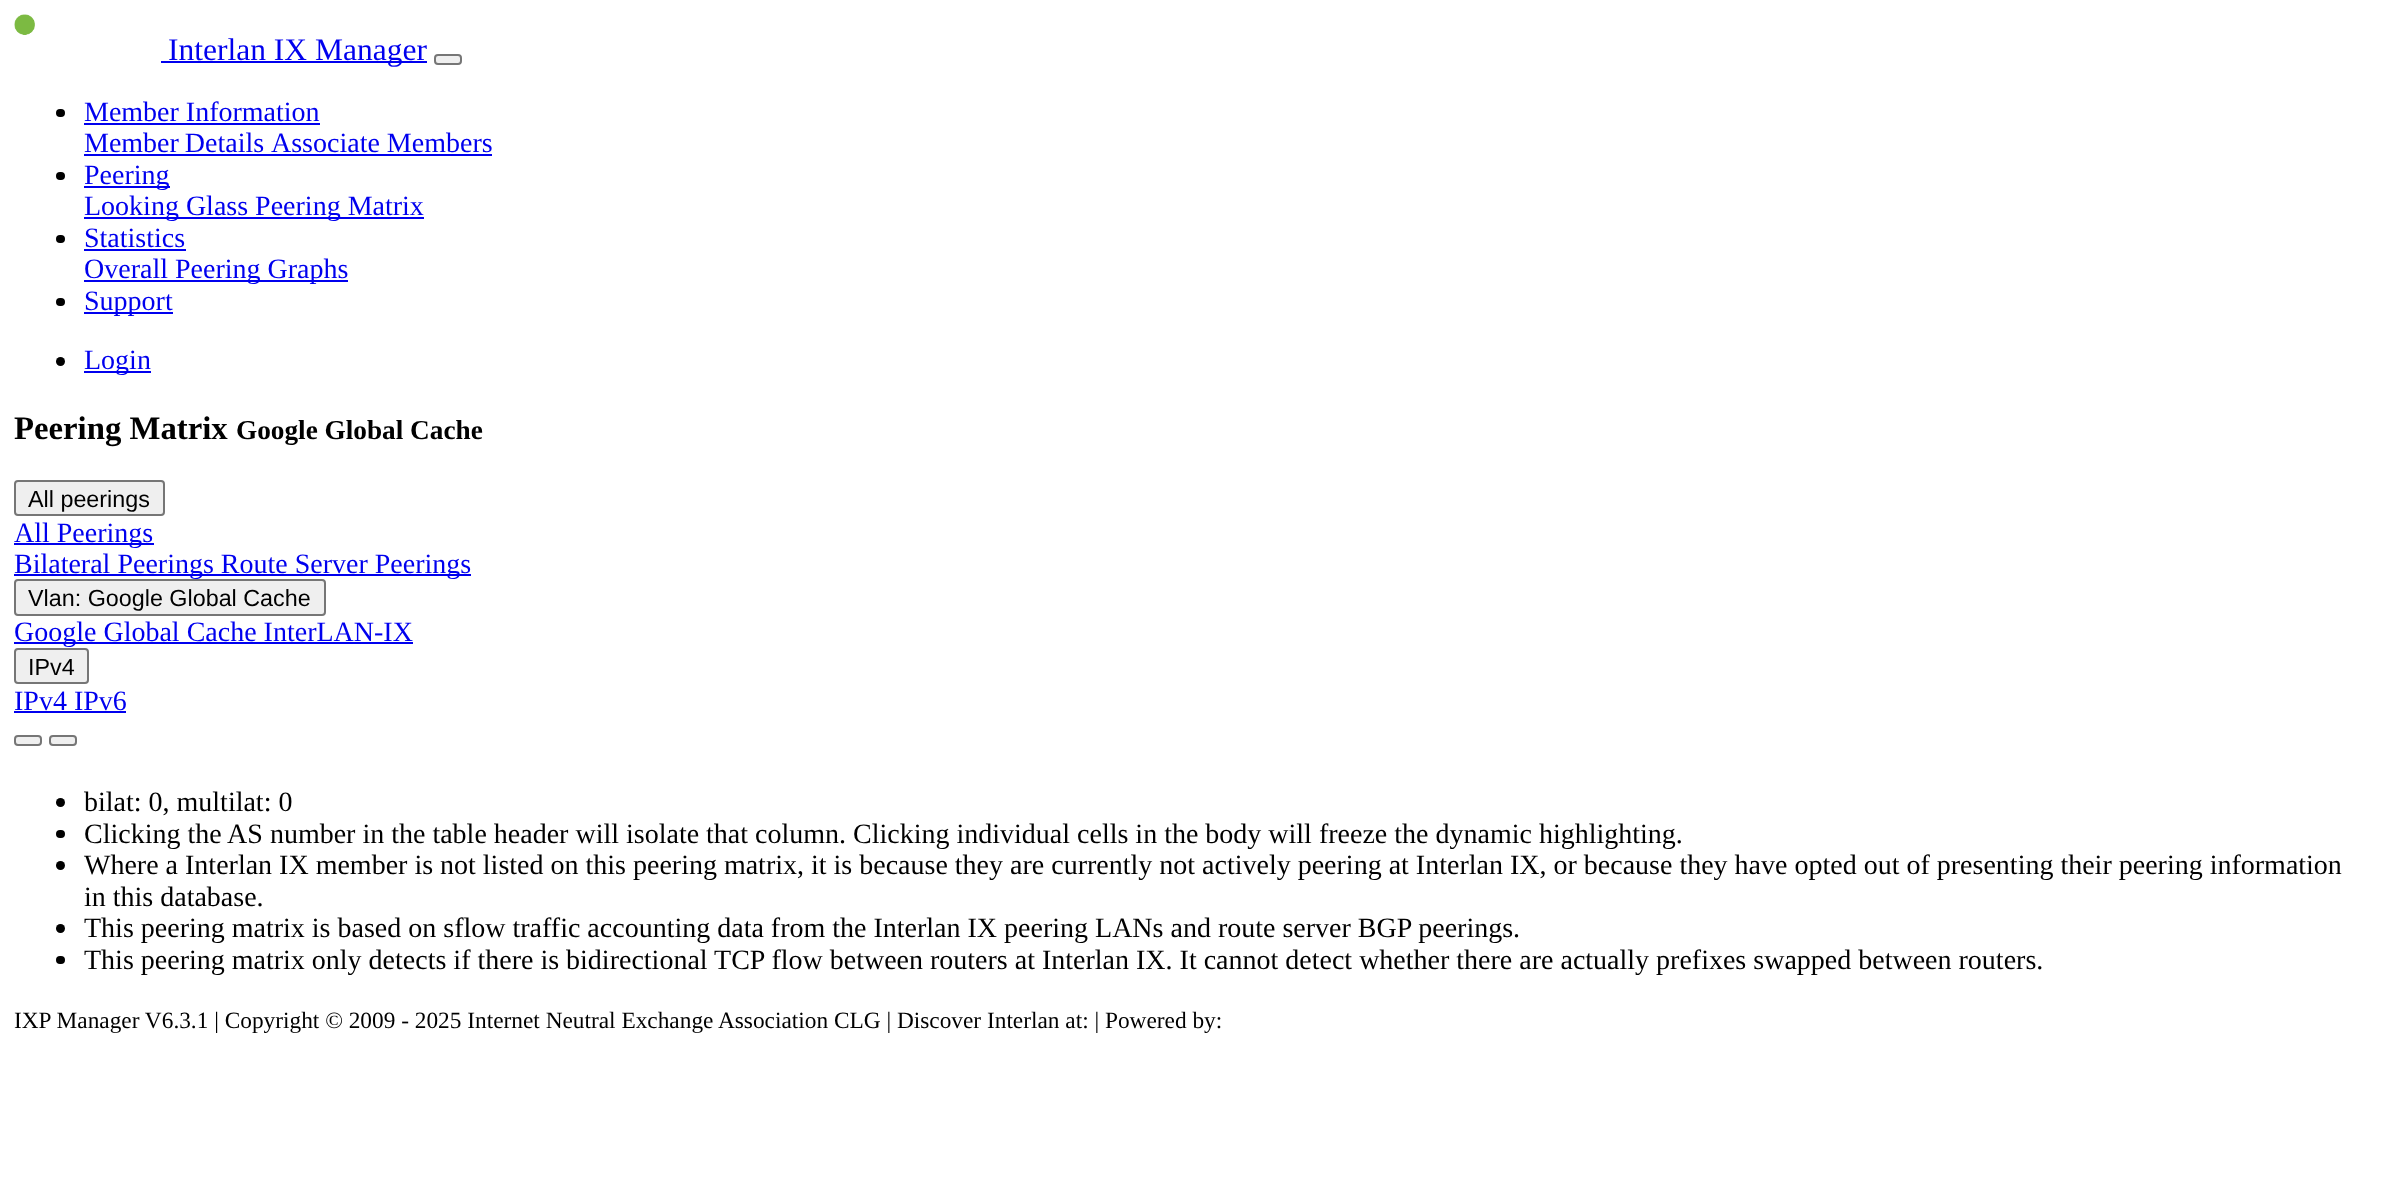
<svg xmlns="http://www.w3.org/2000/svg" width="2381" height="1197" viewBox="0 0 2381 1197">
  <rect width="100%" height="100%" fill="#ffffff"/>
  <image x="14" y="14" width="21" height="21" href="img1.png"/>
  <rect x="161" y="61" width="266" height="2" fill="#0000ee"/>
  <text x="168" y="60" font-family="Liberation Serif" font-size="31.5" fill="#0000ee">Interlan IX Manager</text>
  <rect x="435" y="55" width="26" height="9" rx="3" fill="#efefef" stroke="#767676" stroke-width="2"/>
  <rect x="56" y="109" width="9" height="8" rx="4" fill="#000000"/>
  <text x="84" y="121" font-family="Liberation Serif" font-size="28" fill="#0000ee">Member Information</text>
  <rect x="84" y="123" width="236" height="2" fill="#0000ee"/>
  <text x="84" y="152" word-spacing="-1" font-family="Liberation Serif" font-size="28" fill="#0000ee">Member Details</text>
  <rect x="84" y="154" width="408" height="2" fill="#0000ee"/>
  <text x="271" y="152" font-family="Liberation Serif" font-size="28" fill="#0000ee">Associate Members</text>
  <rect x="56" y="172" width="9" height="8" rx="4" fill="#000000"/>
  <rect x="84" y="186" width="86" height="2" fill="#0000ee"/>
  <text x="84" y="184" font-family="Liberation Serif" font-size="28" fill="#0000ee">Peering</text>
  <rect x="84" y="217" width="340" height="2" fill="#0000ee"/>
  <text x="84" y="215" font-family="Liberation Serif" font-size="28" fill="#0000ee">Looking Glass Peering Matrix</text>
  <rect x="56" y="235" width="9" height="8" rx="4" fill="#000000"/>
  <text x="84" y="247" font-family="Liberation Serif" font-size="28" fill="#0000ee">Statistics</text>
  <rect x="84" y="249" width="102" height="2" fill="#0000ee"/>
  <rect x="84" y="280" width="264" height="2" fill="#0000ee"/>
  <text x="84" y="278" font-family="Liberation Serif" font-size="28" fill="#0000ee">Overall Peering Graphs</text>
  <rect x="56" y="298" width="9" height="8" rx="4" fill="#000000"/>
  <rect x="84" y="312" width="89" height="2" fill="#0000ee"/>
  <text x="84" y="310" font-family="Liberation Serif" font-size="28" fill="#0000ee">Support</text>
  <circle cx="60.5" cy="361.5" r="4.5" fill="#000000"/>
  <rect x="84" y="371" width="67" height="2" fill="#0000ee"/>
  <text x="84" y="369" font-family="Liberation Serif" font-size="28" fill="#0000ee">Login</text>
  <text x="14" y="439" font-family="Liberation Serif" font-size="32.75" font-weight="bold" fill="#000000">Peering Matrix</text>
  <text x="236" y="439" font-family="Liberation Serif" font-size="27.25" font-weight="bold" fill="#000000">Google Global Cache</text>
  <rect x="15" y="481" width="149" height="34" rx="3" fill="#efefef" stroke="#767676" stroke-width="2"/>
  <text x="28" y="507" font-family="Liberation Sans" font-size="23.33" fill="#000000">All peerings</text>
  <rect x="14" y="543" width="140" height="2" fill="#0000ee"/>
  <text x="14" y="542" font-family="Liberation Serif" font-size="28" fill="#0000ee">All Peerings</text>
  <rect x="14" y="574" width="457" height="2" fill="#0000ee"/>
  <text x="14" y="573" font-family="Liberation Serif" font-size="28" fill="#0000ee">Bilateral Peerings Route Server Peerings</text>
  <rect x="15" y="580" width="310" height="35" rx="3" fill="#efefef" stroke="#767676" stroke-width="2"/>
  <text x="28" y="606" font-family="Liberation Sans" font-size="23.33" fill="#000000">Vlan: Google Global Cache</text>
  <rect x="14" y="642" width="399" height="2" fill="#0000ee"/>
  <text x="14" y="641" font-family="Liberation Serif" font-size="28" fill="#0000ee">Google Global Cache InterLAN-IX</text>
  <rect x="15" y="649" width="73" height="34" rx="3" fill="#efefef" stroke="#767676" stroke-width="2"/>
  <text x="28" y="675" font-family="Liberation Sans" font-size="23.33" fill="#000000">IPv4</text>
  <text x="14" y="710" font-family="Liberation Serif" font-size="28" fill="#0000ee">IPv4 IPv6</text>
  <rect x="14" y="711" width="112" height="2" fill="#0000ee"/>
  <rect x="15" y="736" width="26" height="9" rx="3" fill="#efefef" stroke="#767676" stroke-width="2"/>
  <rect x="50" y="736" width="26" height="9" rx="3" fill="#efefef" stroke="#767676" stroke-width="2"/>
  <circle cx="60.5" cy="802.5" r="4.5" fill="#000000"/>
  <text x="84" y="811" font-family="Liberation Serif" font-size="28" fill="#000000">bilat: 0, multilat: 0</text>
  <rect x="56" y="830" width="9" height="8" rx="4" fill="#000000"/>
  <text x="84" y="843" font-family="Liberation Serif" font-size="28" fill="#000000">Clicking the AS number in the table header will isolate that column. Clicking individual cells in the body will freeze the dynamic highlighting.</text>
  <circle cx="60.5" cy="865.5" r="4.5" fill="#000000"/>
  <text x="84" y="874" font-family="Liberation Serif" font-size="28" fill="#000000">Where a Interlan IX member is not listed on this peering matrix, it is because they are currently not actively peering at Interlan IX, or because they have opted out of presenting their peering information</text>
  <text x="84" y="906" font-family="Liberation Serif" font-size="28" fill="#000000">in this database.</text>
  <circle cx="60.5" cy="928.5" r="4.5" fill="#000000"/>
  <text x="84" y="937" font-family="Liberation Serif" font-size="28" fill="#000000">This peering matrix is based on sflow traffic accounting data from the Interlan IX peering LANs and route server BGP peerings.</text>
  <rect x="56" y="956" width="9" height="8" rx="4" fill="#000000"/>
  <text x="84" y="969" font-family="Liberation Serif" font-size="28" fill="#000000">This peering matrix only detects if there is bidirectional TCP flow between routers at Interlan IX. It cannot detect whether there are actually prefixes swapped between routers.</text>
  <text x="14" y="1028" font-family="Liberation Serif" font-size="23.33" fill="#000000">IXP Manager V6.3.1 | Copyright © 2009 - 2025 Internet Neutral Exchange Association CLG | Discover Interlan at: | Powered by:</text>
</svg>
